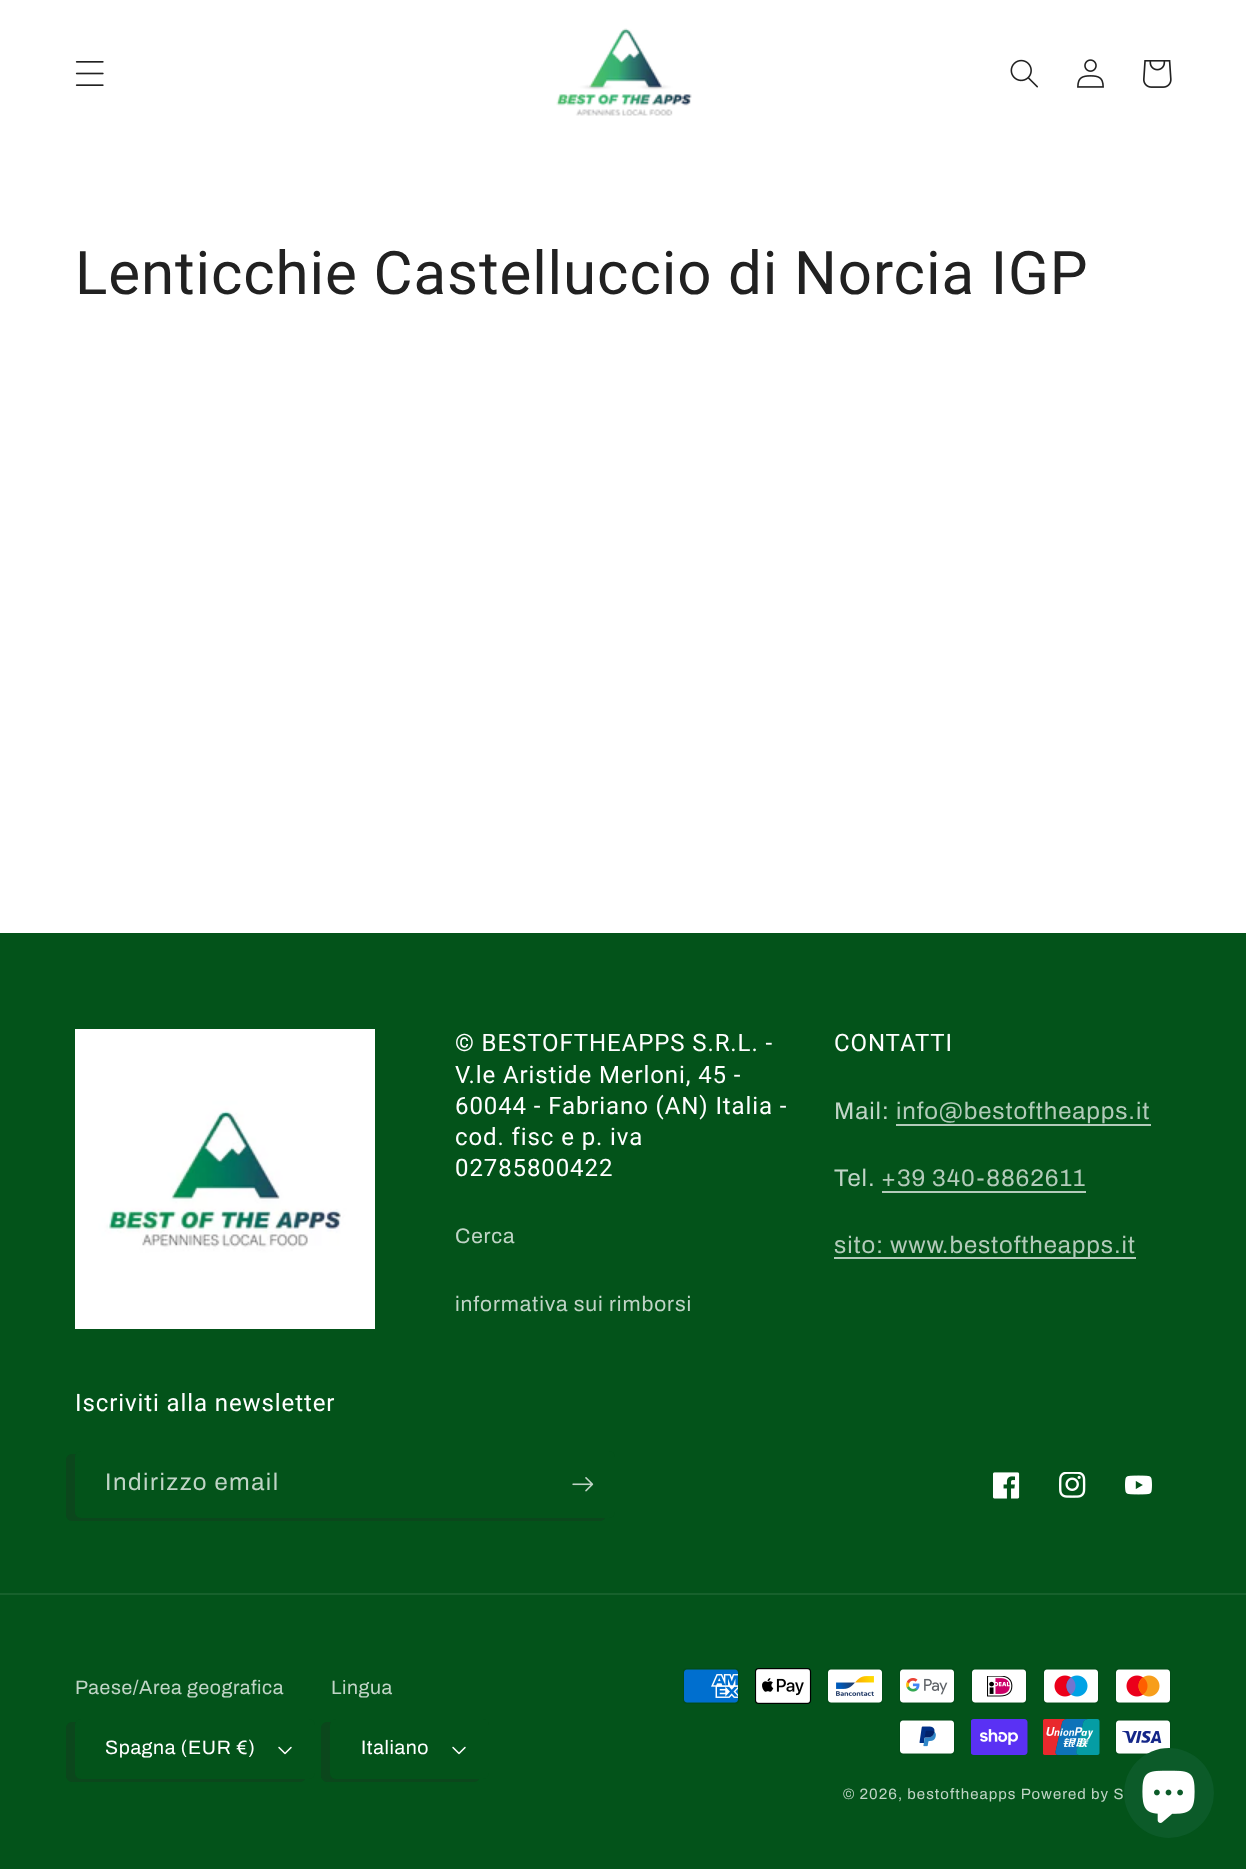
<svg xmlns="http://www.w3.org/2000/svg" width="1246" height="1869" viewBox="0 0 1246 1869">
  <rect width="100%" height="100%" fill="#ffffff"/>
  <image x="75" y="61" width="29" height="25" href="img1.png"/>
  <image x="556" y="28" width="136" height="88" href="img2.png"/>
  <image x="1010" y="59" width="28" height="29" href="img3.png"/>
  <image x="1077" y="59" width="27" height="29" href="img4.png"/>
  <image x="1143" y="60" width="29" height="28" href="img5.png"/>
  <text x="75" y="294" font-family="Roboto" font-size="60" letter-spacing="0.9" fill="#212121">Lenticchie Castelluccio di Norcia IGP</text>
  <rect x="0" y="933" width="1246" height="936" fill="#03531a"/>
  <image x="75" y="1029" width="300" height="300" href="img6.png"/>
  <text x="455" y="1051" font-family="Roboto" font-size="24" letter-spacing="0.9" fill="#ffffff">© BESTOFTHEAPPS S.R.L. -</text>
  <text x="455" y="1083" font-family="Roboto" font-size="24" letter-spacing="0.9" fill="#ffffff">V.le Aristide Merloni, 45 -</text>
  <text x="455" y="1114" font-family="Roboto" font-size="24" letter-spacing="0.9" fill="#ffffff">60044 - Fabriano (AN) Italia -</text>
  <text x="455" y="1145" font-family="Roboto" font-size="24" letter-spacing="0.9" fill="#ffffff">cod. fisc e p. iva</text>
  <text x="455" y="1176" font-family="Roboto" font-size="24" letter-spacing="0.9" fill="#ffffff">02785800422</text>
  <text x="455" y="1243" font-family="Archivo" font-size="21" letter-spacing="0.9" fill="#c0d4c6">Cerca</text>
  <text x="455" y="1311" font-family="Archivo" font-size="21" letter-spacing="0.9" fill="#c0d4c6">informativa sui rimborsi</text>
  <text x="834" y="1051" font-family="Roboto" font-size="24" letter-spacing="0.9" fill="#ffffff">CONTATTI</text>
  <text x="834" y="1119" font-family="Archivo" font-size="24" letter-spacing="0.9" fill="#c0d4c6">Mail:</text>
  <text x="896" y="1119" font-family="Archivo" font-size="24" letter-spacing="0.9" fill="#b3cbba">info@bestoftheapps.it</text>
  <rect x="896" y="1124" width="255" height="2" fill="#b3cbba"/>
  <text x="834" y="1186" font-family="Archivo" font-size="24" letter-spacing="0.9" fill="#c0d4c6">Tel.</text>
  <text x="881" y="1186" font-family="Archivo" font-size="24" letter-spacing="0.9" fill="#b3cbba">+39 340-8862611</text>
  <rect x="882" y="1191" width="204" height="2" fill="#b3cbba"/>
  <rect x="834" y="1257" width="302" height="2" fill="#b3cbba"/>
  <text x="834" y="1253" font-family="Archivo" font-size="24" letter-spacing="0.9" fill="#b3cbba">sito: www.bestoftheapps.it</text>
  <text x="75" y="1411" font-family="Roboto" font-size="24" letter-spacing="0.9" fill="#ffffff">Iscriviti alla newsletter</text>
  <path d="M72 1454C69 1454 66 1457 66 1460V1515C66 1518 69 1521 72 1521H600C602 1521 604 1520 605 1518H81C78 1518 75 1515 75 1512V1456L76 1454Z" fill="#0b471c"/>
  <rect x="75" y="1451" width="540" height="67" rx="6" fill="#03531a"/>
  <text x="105" y="1490" font-family="Archivo" font-size="24" letter-spacing="1.5" fill="#c0d4c6">Indirizzo email</text>
  <image x="572" y="1477" width="22" height="15" href="img7.png"/>
  <image x="993" y="1472" width="27" height="27" href="img8.png"/>
  <image x="1059" y="1472" width="27" height="26" href="img9.png"/>
  <image x="1125" y="1475" width="27" height="20" href="img10.png"/>
  <rect x="0" y="1593" width="1246" height="2" fill="#17612c"/>
  <text x="75" y="1694" font-family="Archivo" font-size="19.5" letter-spacing="0.6" fill="#c0d4c6">Paese/Area geografica</text>
  <path d="M72 1722C69 1722 66 1725 66 1728V1776C66 1779 69 1782 72 1782H300C302 1782 304 1781 305 1779H81C78 1779 75 1776 75 1773V1725L76 1722Z" fill="#0b471c"/>
  <rect x="75" y="1719" width="240" height="60" rx="6" fill="#03531a"/>
  <text x="105" y="1754" font-family="Archivo" font-size="19.5" letter-spacing="0.6" fill="#ffffff">Spagna (EUR €)</text>
  <image x="278" y="1746" width="14" height="9" href="img11.png"/>
  <text x="331" y="1694" font-family="Archivo" font-size="19.5" letter-spacing="0.6" fill="#c0d4c6">Lingua</text>
  <path d="M327 1722C324 1722 321 1725 321 1728V1776C321 1779 324 1782 327 1782H474C476 1782 478 1781 479 1779H336C333 1779 330 1776 330 1773V1725L331 1722Z" fill="#0b471c"/>
  <rect x="330" y="1719" width="159" height="60" rx="6" fill="#03531a"/>
  <text x="361" y="1754" font-family="Archivo" font-size="19.5" letter-spacing="0.6" fill="#ffffff">Italiano</text>
  <image x="452" y="1746" width="14" height="9" href="img11.png"/>
  <image x="683" y="1668" width="56" height="36" href="img12.png"/>
  <image x="755" y="1668" width="57" height="36" href="img13.png"/>
  <image x="827" y="1668" width="56" height="36" href="img14.png"/>
  <image x="899" y="1668" width="56" height="36" href="img15.png"/>
  <image x="971" y="1668" width="56" height="36" href="img16.png"/>
  <image x="1043" y="1668" width="56" height="36" href="img17.png"/>
  <image x="1115" y="1668" width="56" height="36" href="img18.png"/>
  <image x="899" y="1719" width="56" height="36" href="img19.png"/>
  <image x="971" y="1719" width="57" height="36" href="img20.png"/>
  <image x="1043" y="1719" width="57" height="36" href="img21.png"/>
  <image x="1115" y="1719" width="56" height="36" href="img22.png"/>
  <text x="843" y="1799" font-family="Archivo" font-size="15" letter-spacing="1.05" fill="#c0d4c6">© 2026, bestoftheapps Powered by S</text>
  <circle cx="1169" cy="1793" r="45" fill="#0c5b29"/>
  <image x="1142" y="1770" width="53" height="53" href="img23.png"/>
</svg>
